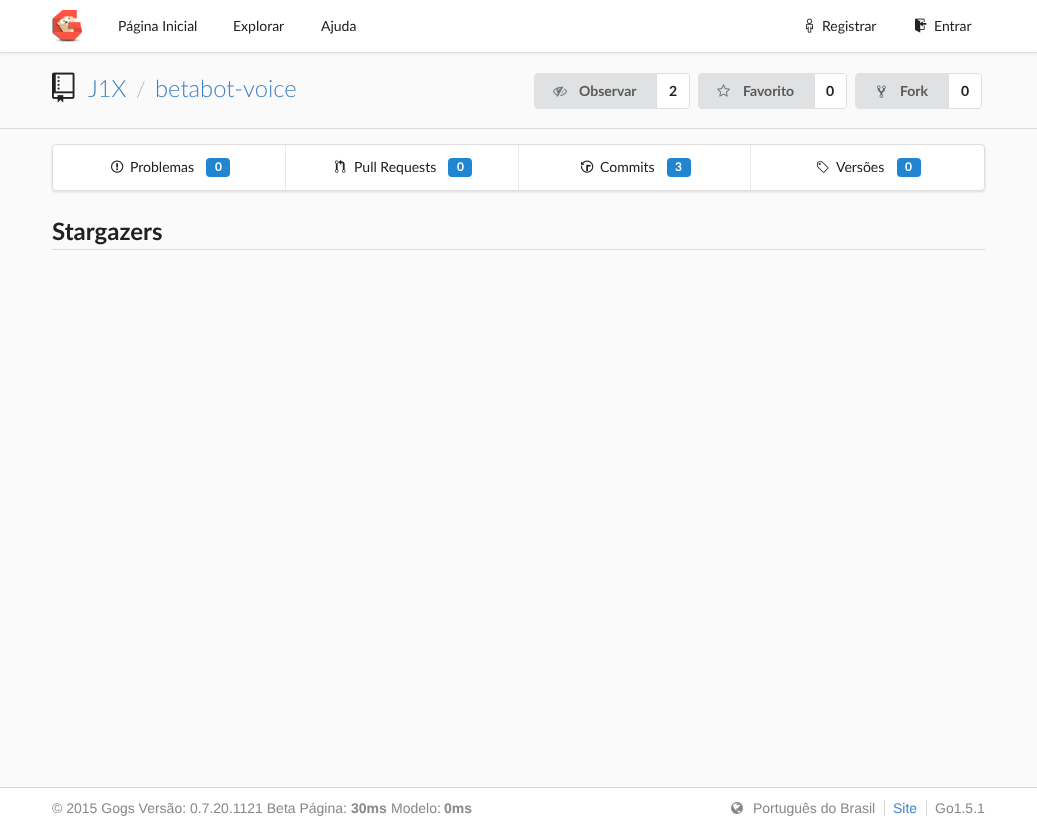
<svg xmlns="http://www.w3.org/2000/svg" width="1037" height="827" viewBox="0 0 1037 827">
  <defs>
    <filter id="blur1" x="-50%" y="-200%" width="200%" height="500%"><feGaussianBlur stdDeviation="1.5"/></filter>
    <filter id="blur2" x="-50%" y="-200%" width="200%" height="500%"><feGaussianBlur stdDeviation="1"/></filter>
  </defs>
  <rect width="100%" height="100%" fill="#fafafa"/>
  <rect x="0" y="-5" width="1037" height="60" fill="#000000" fill-opacity="0.04" filter="url(#blur1)"/>
  <rect x="0" y="0" width="1037" height="52" fill="#ffffff"/>
  <rect x="0" y="52" width="1037" height="1" fill="#dddddd"/>
  <image x="52" y="10" width="30" height="32" href="img1.png"/>
  <text x="118" y="31" font-family="Lato" font-size="14" fill="#212121">Página Inicial</text>
  <text x="233" y="31" font-family="Lato" font-size="14" fill="#212121">Explorar</text>
  <text x="321" y="31" font-family="Lato" font-size="14" fill="#212121">Ajuda</text>
  <image x="806" y="18" width="7" height="15" href="img2.png"/>
  <text x="822" y="31" font-family="Lato" font-size="14" fill="#212121">Registrar</text>
  <image x="915" y="18" width="12" height="15" href="img3.png"/>
  <text x="934" y="31" font-family="Lato" font-size="14" fill="#212121">Entrar</text>
  <image x="52" y="72" width="23" height="31" href="img4.png"/>
  <text x="88" y="97" font-family="Lato" font-size="23.75" font-weight="300" fill="#4183c4">J1X</text>
  <text x="136" y="97" font-family="Lato" font-size="22" font-weight="300" fill="#b4b4b4">/</text>
  <text x="155" y="97" font-family="Lato" font-size="23.75" font-weight="300" fill="#4183c4">betabot-voice</text>
  <path d="M538 73H657V109H538C536 109 534 107 534 105V77C534 75 536 73 538 73Z" fill="#e0e1e2"/>
  <image x="553" y="86" width="14" height="11" href="img5.png"/>
  <text x="579" y="96" font-family="Lato" font-size="14" font-weight="bold" fill="#5a5a5a">Observar</text>
  <path d="M656.5 73.5H686C688 73.5 689.5 75 689.5 77V105C689.5 107 688 108.5 686 108.5H656.5Z" fill="#ffffff" stroke="#dedede"/>
  <text x="669" y="96" font-family="Lato" font-size="14" font-weight="bold" fill="#212121">2</text>
  <path d="M702 73H815V109H702C700 109 698 107 698 105V77C698 75 700 73 702 73Z" fill="#e0e1e2"/>
  <image x="717" y="84" width="13" height="13" href="img6.png"/>
  <text x="743" y="96" font-family="Lato" font-size="14" font-weight="bold" fill="#5a5a5a">Favorito</text>
  <path d="M814.5 73.5H843C845 73.5 846.5 75 846.5 77V105C846.5 107 845 108.5 843 108.5H814.5Z" fill="#ffffff" stroke="#dedede"/>
  <text x="826" y="96" font-family="Lato" font-size="14" font-weight="bold" fill="#212121">0</text>
  <path d="M859 73H949V109H859C857 109 855 107 855 105V77C855 75 857 73 859 73Z" fill="#e0e1e2"/>
  <image x="877" y="85" width="9" height="13" href="img7.png"/>
  <text x="900" y="96" font-family="Lato" font-size="14" font-weight="bold" fill="#5a5a5a">Fork</text>
  <path d="M948.5 73.5H978C980 73.5 981.5 75 981.5 77V105C981.5 107 980 108.5 978 108.5H948.5Z" fill="#ffffff" stroke="#dedede"/>
  <text x="961" y="96" font-family="Lato" font-size="14" font-weight="bold" fill="#212121">0</text>
  <rect x="0" y="128" width="1037" height="1" fill="#dadada"/>
  <rect x="52" y="145" width="933" height="47" rx="4" fill="#222426" fill-opacity="0.15" filter="url(#blur2)"/>
  <rect x="52" y="144" width="933" height="47" rx="4" fill="#ffffff"/>
  <rect x="52.5" y="144.5" width="932" height="46" rx="3.5" fill="none" stroke="#222426" stroke-opacity="0.15"/>
  <image x="111" y="160" width="13" height="13" href="img8.png"/>
  <text x="130" y="172" font-family="Lato" font-size="14" fill="#212121">Problemas</text>
  <rect x="206" y="158" width="24" height="19" rx="4" fill="#2185d0"/>
  <text x="215" y="171" font-family="Lato" font-size="12" font-weight="bold" fill="#ffffff">0</text>
  <rect x="285" y="145" width="1" height="45" fill="#e9e9e9"/>
  <image x="335" y="159" width="11" height="14" href="img9.png"/>
  <text x="354" y="172" font-family="Lato" font-size="14" fill="#212121">Pull Requests</text>
  <rect x="448" y="158" width="24" height="19" rx="4" fill="#2185d0"/>
  <text x="457" y="171" font-family="Lato" font-size="12" font-weight="bold" fill="#ffffff">0</text>
  <rect x="518" y="145" width="1" height="45" fill="#e9e9e9"/>
  <image x="581" y="160" width="13" height="13" href="img10.png"/>
  <text x="600" y="172" font-family="Lato" font-size="14" fill="#212121">Commits</text>
  <rect x="667" y="158" width="24" height="19" rx="4" fill="#2185d0"/>
  <text x="675" y="171" font-family="Lato" font-size="12" font-weight="bold" fill="#ffffff">3</text>
  <rect x="750" y="145" width="1" height="45" fill="#e9e9e9"/>
  <image x="817" y="161" width="12" height="12" href="img11.png"/>
  <text x="836" y="172" font-family="Lato" font-size="14" fill="#212121">Versões</text>
  <rect x="897" y="158" width="24" height="19" rx="4" fill="#2185d0"/>
  <text x="905" y="171" font-family="Lato" font-size="12" font-weight="bold" fill="#ffffff">0</text>
  <rect x="52" y="249" width="933" height="1" fill="#dadada"/>
  <text x="52" y="240" font-family="Lato" font-size="24" font-weight="bold" fill="#212121">Stargazers</text>
  <rect x="0" y="788" width="1037" height="39" fill="#ffffff"/>
  <rect x="0" y="787" width="1037" height="1" fill="#d6d6d6"/>
  <text x="52" y="813" font-family="Liberation Sans" font-size="14" fill="#888888">© 2015 Gogs Versão: 0.7.20.1121 Beta Página:</text>
  <text x="351" y="813" font-family="Liberation Sans" font-size="14" font-weight="bold" fill="#888888">30ms</text>
  <text x="391" y="813" font-family="Liberation Sans" font-size="14" fill="#888888">Modelo:</text>
  <text x="444" y="813" font-family="Liberation Sans" font-size="14" font-weight="bold" fill="#888888">0ms</text>
  <image x="731" y="802" width="12" height="12" href="img12.png"/>
  <text x="753" y="813" font-family="Liberation Sans" font-size="14" fill="#888888">Português do Brasil</text>
  <text x="893" y="813" font-family="Liberation Sans" font-size="14" fill="#4183c4">Site</text>
  <rect x="884" y="800" width="1" height="16" fill="#d6d6d6"/>
  <text x="935" y="813" font-family="Liberation Sans" font-size="14" fill="#888888">Go1.5.1</text>
  <rect x="926" y="800" width="1" height="16" fill="#d6d6d6"/>
</svg>
